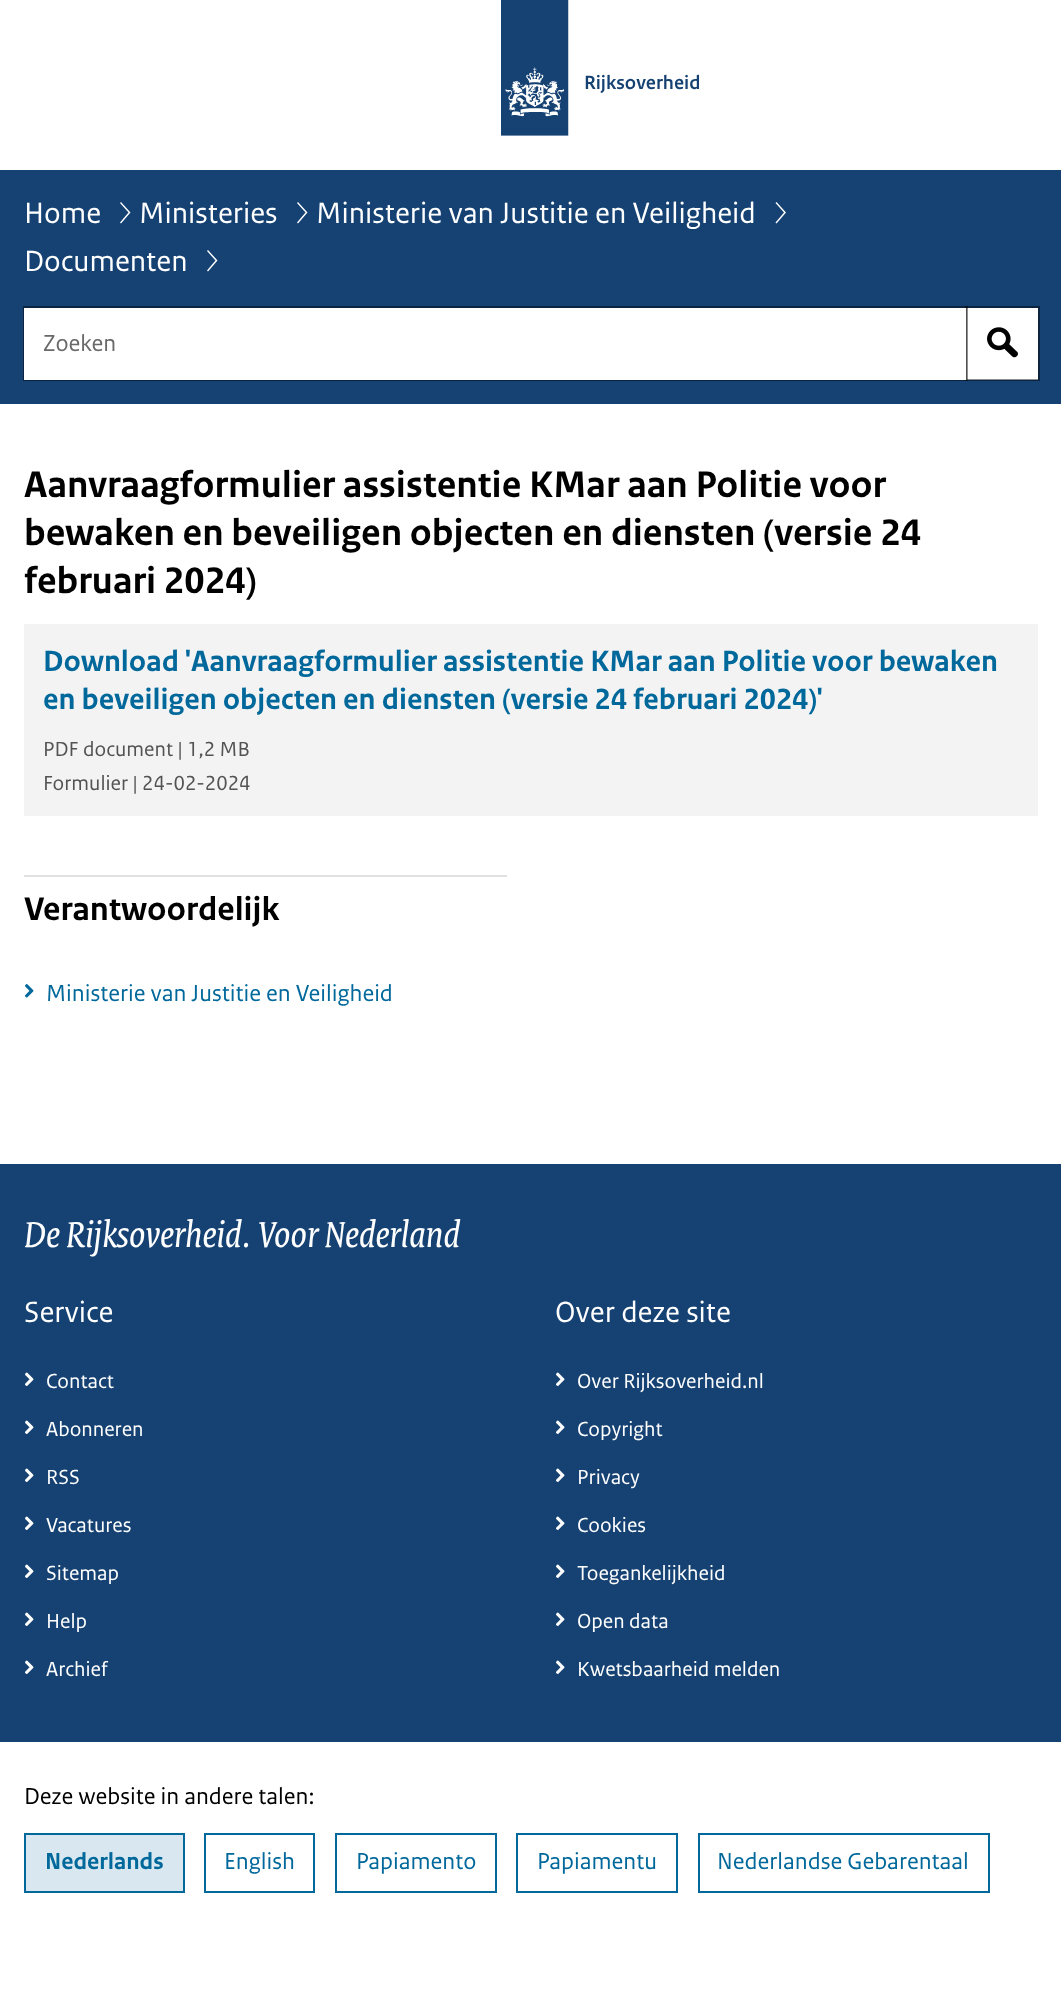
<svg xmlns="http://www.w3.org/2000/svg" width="1061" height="1991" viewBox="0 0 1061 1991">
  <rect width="100%" height="100%" fill="#ffffff"/>
  <image x="501" y="0" width="68" height="136" href="img1.png"/>
  <text x="584" y="89" font-family="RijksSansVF" font-size="20.25" font-weight="600" fill="#154273">Rijksoverheid</text>
  <rect x="0" y="170" width="1061" height="234" fill="#154273"/>
  <text x="24" y="223" font-family="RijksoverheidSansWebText" font-size="30.75" fill="#ffffff">Home</text>
  <path d="M121 223.5L120 222.5L128.5 212.5L120 203L121 202L130.5 212.5Z" fill="#ffffff"/>
  <text x="139" y="223" font-family="RijksoverheidSansWebText" font-size="30.75" fill="#ffffff">Ministeries</text>
  <path d="M298 223.5L297 222.5L305.5 212.5L297 203L298 202L307.5 212.5Z" fill="#ffffff"/>
  <text x="316" y="223" font-family="RijksoverheidSansWebText" font-size="30.75" fill="#ffffff">Ministerie van Justitie en Veiligheid</text>
  <path d="M776.5 223.5L775.5 222.5L784 212.5L775.5 203L776.5 202L786 212.5Z" fill="#ffffff"/>
  <text x="24" y="271" font-family="RijksoverheidSansWebText" font-size="30.75" fill="#ffffff">Documenten</text>
  <path d="M208 271.5L207 270.5L215.5 260.5L207 251L208 250L217.5 260.5Z" fill="#ffffff"/>
  <rect x="966" y="308" width="72" height="72" fill="#ffffff"/>
  <rect x="966" y="307" width="73" height="73" fill="none" stroke="#000000" stroke-opacity="0.44" stroke-width="2"/>
  <rect x="24" y="307" width="943" height="73" fill="none" stroke="#000000" stroke-opacity="0.44" stroke-width="2"/>
  <rect x="24" y="308" width="942" height="72" fill="#ffffff"/>
  <text x="43" y="351" font-family="RijksoverheidSansWebText" font-size="24.25" fill="#696969">Zoeken</text>
  <image x="987" y="327" width="31" height="31" href="img2.png"/>
  <text x="24" y="497" font-family="RijksoverheidSansWebText" font-size="38.9" font-weight="bold" fill="#000000">Aanvraagformulier assistentie KMar aan Politie voor</text>
  <text x="24" y="545" font-family="RijksoverheidSansWebText" font-size="38.9" font-weight="bold" fill="#000000">bewaken en beveiligen objecten en diensten (versie 24</text>
  <text x="24" y="593" font-family="RijksoverheidSansWebText" font-size="38.9" font-weight="bold" fill="#000000">februari 2024)</text>
  <rect x="24" y="624" width="1014" height="192" fill="#f3f3f3"/>
  <text x="43" y="671" font-family="RijksoverheidSansWebText" font-size="30.75" font-weight="bold" fill="#01689b">Download 'Aanvraagformulier assistentie KMar aan Politie voor bewaken</text>
  <text x="43" y="709" font-family="RijksoverheidSansWebText" font-size="30.75" font-weight="bold" fill="#01689b">en beveiligen objecten en diensten (versie 24 februari 2024)'</text>
  <text x="43" y="756" font-family="RijksoverheidSansWebText" font-size="21.5" fill="#535353">PDF document | 1,2 MB</text>
  <text x="43" y="790" font-family="RijksoverheidSansWebText" font-size="21.5" fill="#535353">Formulier | 24-02-2024</text>
  <rect x="24" y="875" width="483" height="2" fill="#e1e1e1"/>
  <text x="24" y="920" font-family="RijksoverheidSansWebText" font-size="34.5" font-weight="bold" fill="#000000">Verantwoordelijk</text>
  <image x="25" y="984" width="9" height="14" href="img3.png"/>
  <text x="46" y="1001" font-family="RijksoverheidSansWebText" font-size="24.25" fill="#01689b">Ministerie van Justitie en Veiligheid</text>
  <rect x="0" y="1164" width="1061" height="578" fill="#154273"/>
  <text x="24" y="1247" font-family="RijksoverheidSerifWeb" font-size="38.9" font-style="italic" fill="#ffffff">De Rijksoverheid. Voor Nederland</text>
  <text x="24" y="1322" font-family="RijksoverheidSansWebText" font-size="30.75" fill="#ffffff">Service</text>
  <image x="25" y="1372" width="9" height="14" href="img4.png"/>
  <text x="46" y="1388" font-family="RijksoverheidSansWebText" font-size="21.5" fill="#ffffff">Contact</text>
  <image x="25" y="1420" width="9" height="14" href="img4.png"/>
  <text x="46" y="1436" font-family="RijksoverheidSansWebText" font-size="21.5" fill="#ffffff">Abonneren</text>
  <image x="25" y="1468" width="9" height="14" href="img4.png"/>
  <text x="46" y="1484" font-family="RijksoverheidSansWebText" font-size="21.5" fill="#ffffff">RSS</text>
  <image x="25" y="1516" width="9" height="14" href="img4.png"/>
  <text x="46" y="1532" font-family="RijksoverheidSansWebText" font-size="21.5" fill="#ffffff">Vacatures</text>
  <image x="25" y="1564" width="9" height="14" href="img4.png"/>
  <text x="46" y="1580" font-family="RijksoverheidSansWebText" font-size="21.5" fill="#ffffff">Sitemap</text>
  <image x="25" y="1612" width="9" height="14" href="img4.png"/>
  <text x="46" y="1628" font-family="RijksoverheidSansWebText" font-size="21.5" fill="#ffffff">Help</text>
  <image x="25" y="1660" width="9" height="14" href="img4.png"/>
  <text x="46" y="1676" font-family="RijksoverheidSansWebText" font-size="21.5" fill="#ffffff">Archief</text>
  <text x="555" y="1322" font-family="RijksoverheidSansWebText" font-size="30.75" fill="#ffffff">Over deze site</text>
  <image x="556" y="1372" width="9" height="14" href="img4.png"/>
  <text x="577" y="1388" font-family="RijksoverheidSansWebText" font-size="21.5" fill="#ffffff">Over Rijksoverheid.nl</text>
  <image x="556" y="1420" width="9" height="14" href="img4.png"/>
  <text x="577" y="1436" font-family="RijksoverheidSansWebText" font-size="21.5" fill="#ffffff">Copyright</text>
  <image x="556" y="1468" width="9" height="14" href="img4.png"/>
  <text x="577" y="1484" font-family="RijksoverheidSansWebText" font-size="21.5" fill="#ffffff">Privacy</text>
  <image x="556" y="1516" width="9" height="14" href="img4.png"/>
  <text x="577" y="1532" font-family="RijksoverheidSansWebText" font-size="21.5" fill="#ffffff">Cookies</text>
  <image x="556" y="1564" width="9" height="14" href="img4.png"/>
  <text x="577" y="1580" font-family="RijksoverheidSansWebText" font-size="21.5" fill="#ffffff">Toegankelijkheid</text>
  <image x="556" y="1612" width="9" height="14" href="img4.png"/>
  <text x="577" y="1628" font-family="RijksoverheidSansWebText" font-size="21.5" fill="#ffffff">Open data</text>
  <image x="556" y="1660" width="9" height="14" href="img4.png"/>
  <text x="577" y="1676" font-family="RijksoverheidSansWebText" font-size="21.5" fill="#ffffff">Kwetsbaarheid melden</text>
  <text x="24" y="1804" font-family="RijksoverheidSansWebText" font-size="24.25" fill="#000000">Deze website in andere talen:</text>
  <rect x="25" y="1834" width="159" height="58" fill="#d9e8f0" stroke="#01689b" stroke-width="2"/>
  <text x="45" y="1869" font-family="RijksoverheidSansWebText" font-size="24.25" font-weight="bold" fill="#01689b">Nederlands</text>
  <rect x="205" y="1834" width="109" height="58" fill="none" stroke="#01689b" stroke-width="2"/>
  <text x="224" y="1869" font-family="RijksoverheidSansWebText" font-size="24.25" fill="#01689b">English</text>
  <rect x="336" y="1834" width="160" height="58" fill="none" stroke="#01689b" stroke-width="2"/>
  <text x="356" y="1869" font-family="RijksoverheidSansWebText" font-size="24.25" fill="#01689b">Papiamento</text>
  <rect x="517" y="1834" width="160" height="58" fill="none" stroke="#01689b" stroke-width="2"/>
  <text x="537" y="1869" font-family="RijksoverheidSansWebText" font-size="24.25" fill="#01689b">Papiamentu</text>
  <rect x="699" y="1834" width="290" height="58" fill="none" stroke="#01689b" stroke-width="2"/>
  <text x="717" y="1869" font-family="RijksoverheidSansWebText" font-size="24.25" fill="#01689b">Nederlandse Gebarentaal</text>
</svg>
